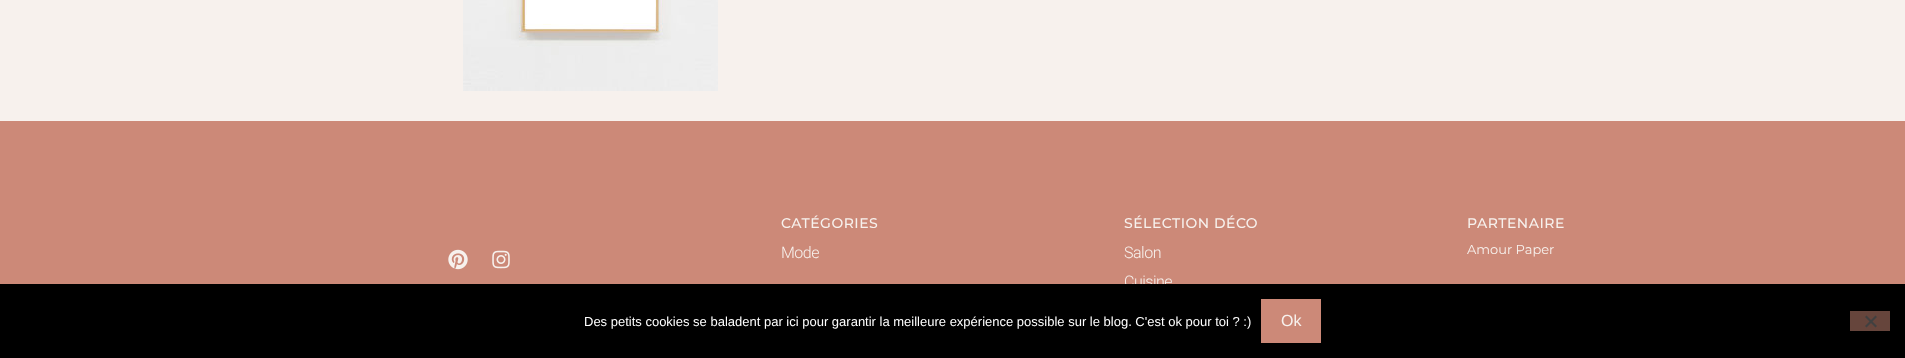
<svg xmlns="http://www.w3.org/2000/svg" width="1905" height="358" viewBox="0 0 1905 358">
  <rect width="100%" height="100%" fill="#f7f1ed"/>
  <image x="463" y="0" width="255" height="91" href="img1.png"/>
  <rect x="0" y="121" width="1905" height="163" fill="#cc8978"/>
  <text x="781" y="228" font-family="Montserrat" font-size="14" font-weight="500" letter-spacing="0.5" fill="#f7f1ed">CATÉGORIES</text>
  <text x="781" y="258" font-family="Roboto" font-size="16" font-weight="300" letter-spacing="-0.5" fill="#f7f1ed">Mode</text>
  <text x="1124" y="228" font-family="Montserrat" font-size="14" font-weight="500" letter-spacing="0.5" fill="#f7f1ed">SÉLECTION DÉCO</text>
  <text x="1124" y="258" font-family="Roboto" font-size="16" font-weight="300" letter-spacing="-0.5" fill="#f7f1ed">Salon</text>
  <text x="1124" y="287" font-family="Roboto" font-size="16" font-weight="300" letter-spacing="-0.5" fill="#f7f1ed">Cuisine</text>
  <text x="1467" y="228" font-family="Montserrat" font-size="14" font-weight="500" letter-spacing="0.5" fill="#f7f1ed">PARTENAIRE</text>
  <text x="1467" y="254" font-family="Montserrat" font-size="13" fill="#f7f1ed">Amour Paper</text>
  <image x="448" y="249" width="20" height="21" href="img2.png"/>
  <image x="492" y="250" width="18" height="19" href="img3.png"/>
  <rect x="0" y="284" width="1905" height="74" fill="#000000"/>
  <text x="584" y="326" font-family="Liberation Sans" font-size="13" fill="#ffffff">Des petits cookies se baladent par ici pour garantir la meilleure expérience possible sur le blog. C'est ok pour toi ? :)</text>
  <rect x="1261" y="299" width="60" height="44" fill="#cc8978"/>
  <text x="1281" y="326" font-family="Liberation Sans" font-size="16" fill="#f7f1ed">Ok</text>
  <rect x="1850" y="311" width="40" height="20" fill="#66453c"/>
  <path d="M1875.5 315.5L1877 317L1866.5 327.5L1865 326Z" fill="#404040"/>
  <path d="M1865 317L1866.5 315.5L1877 326L1875.5 327.5Z" fill="#404040"/>
</svg>
